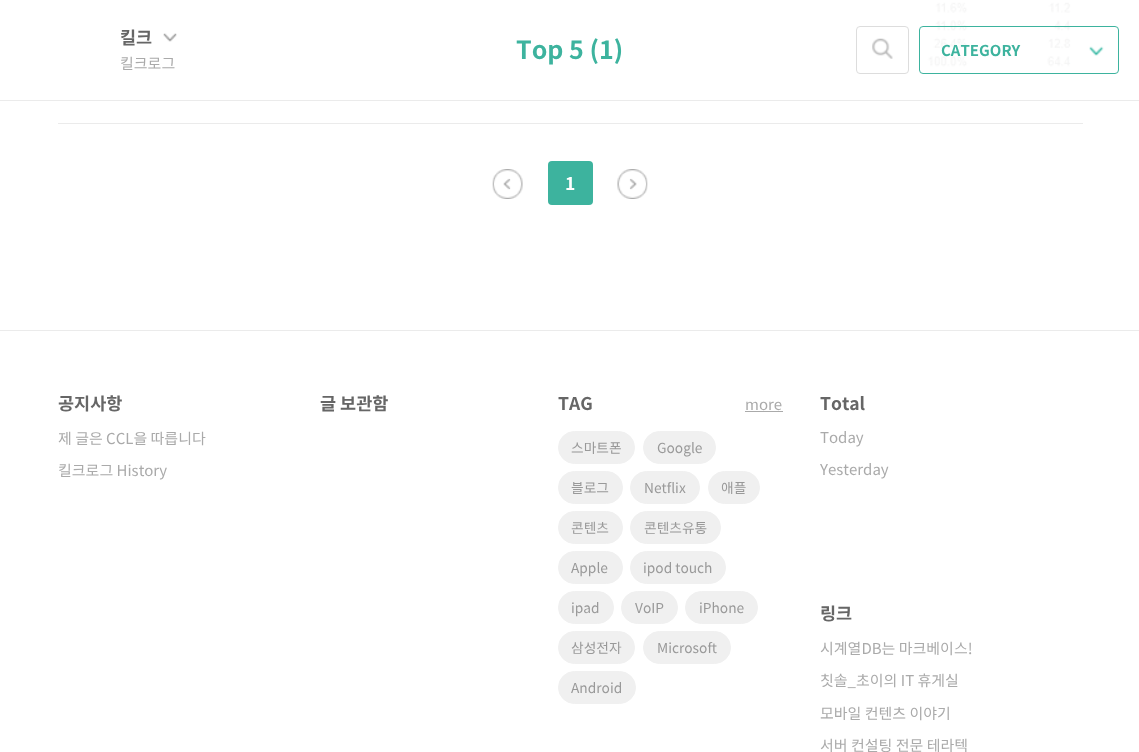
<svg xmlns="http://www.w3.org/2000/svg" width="1139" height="752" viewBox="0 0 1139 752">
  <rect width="100%" height="100%" fill="#ffffff"/>
  <rect x="0" y="100" width="1139" height="1" fill="#ebebeb"/>
  <text x="120" y="44" font-family="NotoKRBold" font-size="17.5" font-weight="bold" fill="#666666">킬크</text>
  <image x="163" y="33" width="14" height="9" href="img1.png"/>
  <text x="120" y="69" font-family="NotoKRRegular" font-size="15" fill="#aaaaaa">킬크로그</text>
  <text x="516" y="59" font-family="NotoKRBold" font-size="25" font-weight="bold" fill="#3db39e">Top 5 (1)</text>
  <image x="897" y="0" width="178" height="69" href="img4.png"/>
  <rect x="856.5" y="26.5" width="52" height="47" rx="3.5" fill="none" stroke="#dddddd"/>
  <image x="872" y="38" width="21" height="21" href="img2.png"/>
  <rect x="919.5" y="26.5" width="199" height="47" rx="3.5" fill="none" stroke="#3db39e"/>
  <text x="941" y="56" font-family="NotoKRBold" font-size="15" font-weight="bold" fill="#3db39e">CATEGORY</text>
  <image x="1089" y="46" width="15" height="10" href="img3.png"/>
  <rect x="58" y="123" width="1025" height="1" fill="#ebebeb"/>
  <image x="492" y="169" width="31" height="30" href="img5.png"/>
  <rect x="548" y="161" width="45" height="44" rx="4" fill="#3db39e"/>
  <text x="565" y="190" font-family="NotoKRBold" font-size="17.5" font-weight="bold" fill="#ffffff">1</text>
  <image x="617" y="169" width="31" height="30" href="img6.png"/>
  <rect x="0" y="330" width="1139" height="1" fill="#ebebeb"/>
  <text x="58" y="410" font-family="NotoKRBold" font-size="17.5" font-weight="bold" fill="#666666">공지사항</text>
  <text x="58" y="444" font-family="NotoKRRegular" font-size="15" fill="#aaaaaa">제 글은 CCL을 따릅니다</text>
  <text x="58" y="476" font-family="NotoKRRegular" font-size="15" fill="#aaaaaa">킬크로그 History</text>
  <text x="320" y="410" font-family="NotoKRBold" font-size="17.5" font-weight="bold" fill="#666666">글 보관함</text>
  <text x="558" y="410" font-family="NotoKRBold" font-size="17.5" font-weight="bold" fill="#666666">TAG</text>
  <text x="745" y="410" font-family="NotoKRRegular" font-size="15" fill="#aaaaaa">more</text>
  <rect x="745" y="411" width="38" height="1" fill="#aaaaaa"/>
  <rect x="558.5" y="431.5" width="76" height="32" rx="16" fill="#f0f0f0" stroke="#f0f0f0"/>
  <text x="571" y="453" font-family="NotoKRRegular" font-size="13.75" fill="#999999">스마트폰</text>
  <rect x="643.5" y="431.5" width="72" height="32" rx="16" fill="#f0f0f0" stroke="#f0f0f0"/>
  <text x="657" y="453" font-family="NotoKRRegular" font-size="13.75" fill="#999999">Google</text>
  <rect x="558.5" y="471.5" width="64" height="32" rx="16" fill="#f0f0f0" stroke="#f0f0f0"/>
  <text x="571" y="493" font-family="NotoKRRegular" font-size="13.75" fill="#999999">블로그</text>
  <rect x="630.5" y="471.5" width="69" height="32" rx="16" fill="#f0f0f0" stroke="#f0f0f0"/>
  <text x="644" y="493" font-family="NotoKRRegular" font-size="13.75" fill="#999999">Netflix</text>
  <rect x="708.5" y="471.5" width="51" height="32" rx="16" fill="#f0f0f0" stroke="#f0f0f0"/>
  <text x="721" y="493" font-family="NotoKRRegular" font-size="13.75" fill="#999999">애플</text>
  <rect x="558.5" y="511.5" width="64" height="32" rx="16" fill="#f0f0f0" stroke="#f0f0f0"/>
  <text x="571" y="533" font-family="NotoKRRegular" font-size="13.75" fill="#999999">콘텐츠</text>
  <rect x="630.5" y="511.5" width="90" height="32" rx="16" fill="#f0f0f0" stroke="#f0f0f0"/>
  <text x="644" y="533" font-family="NotoKRRegular" font-size="13.75" fill="#999999">콘텐츠유통</text>
  <rect x="558.5" y="551.5" width="64" height="32" rx="16" fill="#f0f0f0" stroke="#f0f0f0"/>
  <text x="571" y="573" font-family="NotoKRRegular" font-size="13.75" fill="#999999">Apple</text>
  <rect x="630.5" y="551.5" width="95" height="32" rx="16" fill="#f0f0f0" stroke="#f0f0f0"/>
  <text x="643" y="573" font-family="NotoKRRegular" font-size="13.75" fill="#999999">ipod touch</text>
  <rect x="558.5" y="591.5" width="55" height="32" rx="16" fill="#f0f0f0" stroke="#f0f0f0"/>
  <text x="571" y="613" font-family="NotoKRRegular" font-size="13.75" fill="#999999">ipad</text>
  <rect x="621.5" y="591.5" width="56" height="32" rx="16" fill="#f0f0f0" stroke="#f0f0f0"/>
  <text x="635" y="613" font-family="NotoKRRegular" font-size="13.75" fill="#999999">VoIP</text>
  <rect x="685.5" y="591.5" width="72" height="32" rx="16" fill="#f0f0f0" stroke="#f0f0f0"/>
  <text x="699" y="613" font-family="NotoKRRegular" font-size="13.75" fill="#999999">iPhone</text>
  <rect x="558.5" y="631.5" width="76" height="32" rx="16" fill="#f0f0f0" stroke="#f0f0f0"/>
  <text x="571" y="653" font-family="NotoKRRegular" font-size="13.75" fill="#999999">삼성전자</text>
  <rect x="643.5" y="631.5" width="87" height="32" rx="16" fill="#f0f0f0" stroke="#f0f0f0"/>
  <text x="657" y="653" font-family="NotoKRRegular" font-size="13.75" fill="#999999">Microsoft</text>
  <rect x="558.5" y="671.5" width="77" height="32" rx="16" fill="#f0f0f0" stroke="#f0f0f0"/>
  <text x="571" y="693" font-family="NotoKRRegular" font-size="13.75" fill="#999999">Android</text>
  <text x="820" y="410" font-family="NotoKRBold" font-size="17.5" font-weight="bold" fill="#666666">Total</text>
  <text x="820" y="443" font-family="NotoKRRegular" font-size="15" fill="#aaaaaa">Today</text>
  <text x="820" y="475" font-family="NotoKRRegular" font-size="15" fill="#aaaaaa">Yesterday</text>
  <text x="820" y="620" font-family="NotoKRBold" font-size="17.5" font-weight="bold" fill="#666666">링크</text>
  <text x="820" y="654" font-family="NotoKRRegular" font-size="15" fill="#aaaaaa">시계열DB는 마크베이스!</text>
  <text x="820" y="686" font-family="NotoKRRegular" font-size="15" fill="#aaaaaa">칫솔_초이의 IT 휴게실</text>
  <text x="820" y="719" font-family="NotoKRRegular" font-size="15" fill="#aaaaaa">모바일 컨텐츠 이야기</text>
  <text x="820" y="751" font-family="NotoKRRegular" font-size="15" fill="#aaaaaa">서버 컨설팅 전문 테라텍</text>
</svg>
